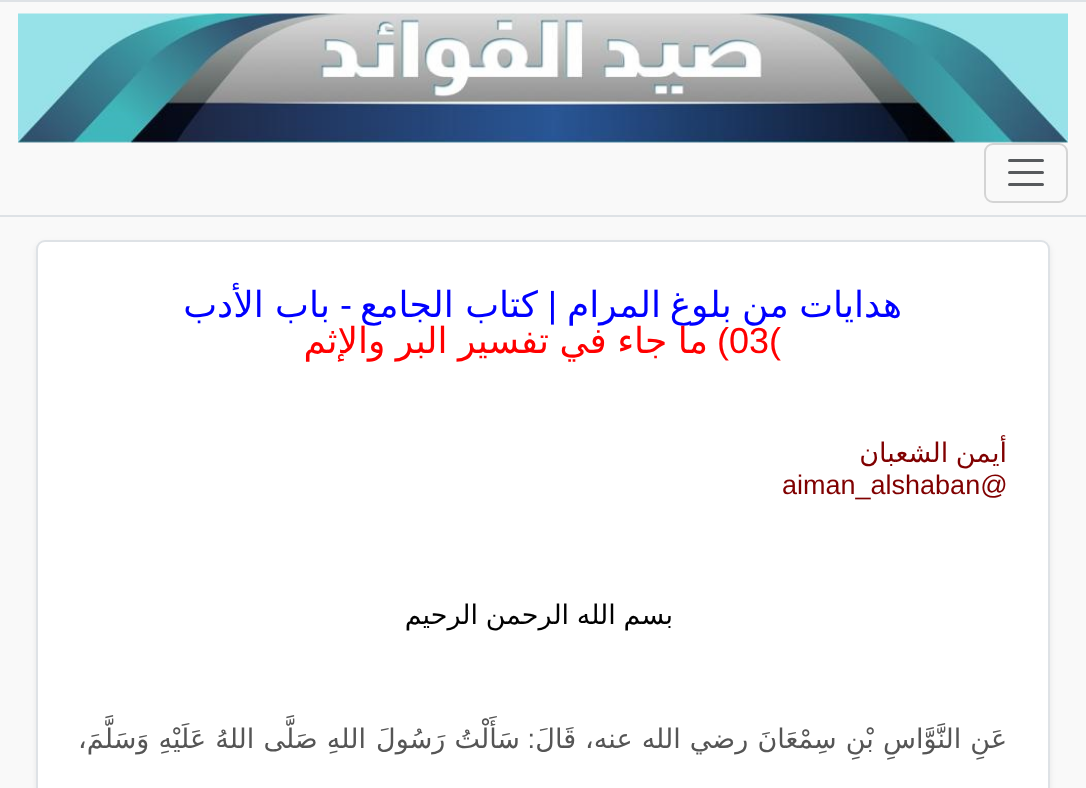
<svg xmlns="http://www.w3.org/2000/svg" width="1086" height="788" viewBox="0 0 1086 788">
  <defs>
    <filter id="blur1" x="-50%" y="-200%" width="200%" height="500%"><feGaussianBlur stdDeviation="3"/></filter>
  </defs>
  <rect width="100%" height="100%" fill="#f9f9f9"/>
  <rect x="0" y="0" width="1086" height="2" fill="#dee2e6"/>
  <rect x="0" y="215" width="1086" height="2" fill="#dee2e6"/>
  <image x="18" y="13" width="1050" height="130" href="img1.png"/>
  <rect x="985" y="144" width="82" height="58" rx="8" fill="none" stroke="#d4d4d4" stroke-width="2"/>
  <path d="M1009.5 160.5H1042.5M1009.5 172.5H1042.5M1009.5 184.5H1042.5" fill="none" stroke="#575a5d" stroke-width="3" stroke-linecap="round"/>
  <rect x="36" y="243" width="1014" height="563" rx="9" fill="#000000" fill-opacity="0.07" filter="url(#blur1)"/>
  <rect x="37" y="241" width="1012" height="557" rx="8" fill="#ffffff" stroke="#dee2e6" stroke-width="2"/>
  <text x="902" y="317" word-spacing="-1" font-family="DejaVu Sans" font-size="36" direction="rtl" fill="#0000ff">هدايات من بلوغ</text>
  <text x="661" y="317" font-family="DejaVu Sans" font-size="36" direction="rtl" fill="#0000ff">المرام</text>
  <text x="557" y="317" font-family="Liberation Sans" font-size="36" direction="rtl" fill="#0000ff">|</text>
  <text x="538" y="317" font-family="DejaVu Sans" font-size="36" direction="rtl" fill="#0000ff">كتاب الجامع</text>
  <text x="352" y="317" font-family="Liberation Sans" font-size="36" direction="rtl" fill="#0000ff">-</text>
  <text x="330" y="317" font-family="DejaVu Sans" font-size="36" direction="rtl" fill="#0000ff">باب الأدب</text>
  <text x="729" y="353" font-family="Liberation Sans" font-size="36" fill="#ff0000">03(</text>
  <text x="729" y="353" font-family="Liberation Sans" font-size="36" direction="rtl" fill="#ff0000">)</text>
  <text x="708" y="353" word-spacing="-1" font-family="DejaVu Sans" font-size="36" direction="rtl" fill="#ff0000">ما جاء في</text>
  <text x="549" y="353" word-spacing="-1" font-family="DejaVu Sans" font-size="36" direction="rtl" fill="#ff0000">تفسير البر والإثم</text>
  <text x="1007" y="462" word-spacing="-1" font-family="DejaVu Sans" font-size="27" direction="rtl" fill="#800000">أيمن الشعبان</text>
  <text x="782" y="494" font-family="Liberation Sans" font-size="27" fill="#800000">aiman_alshaban@</text>
  <text x="673" y="624" word-spacing="-1" font-family="DejaVu Sans" font-size="27" direction="rtl" fill="#000000">بسم الله الرحمن الرحيم</text>
  <text x="1007" y="748" word-spacing="0.5" font-family="DejaVu Sans" font-size="27" direction="rtl" fill="#555555">عَنِ النَّوَّاسِ بْنِ سِمْعَانَ رضي الله عنه، قَالَ</text>
  <text x="535" y="748" font-family="Liberation Sans" font-size="27" direction="rtl" fill="#555555">:</text>
  <text x="520" y="748" word-spacing="0.5" font-family="DejaVu Sans" font-size="27" direction="rtl" fill="#555555">سَأَلْتُ رَسُولَ</text>
  <text x="366" y="748" word-spacing="0.5" font-family="DejaVu Sans" font-size="27" direction="rtl" fill="#555555">اللهِ صَلَّى اللهُ عَلَيْهِ وَسَلَّمَ،</text>
</svg>
